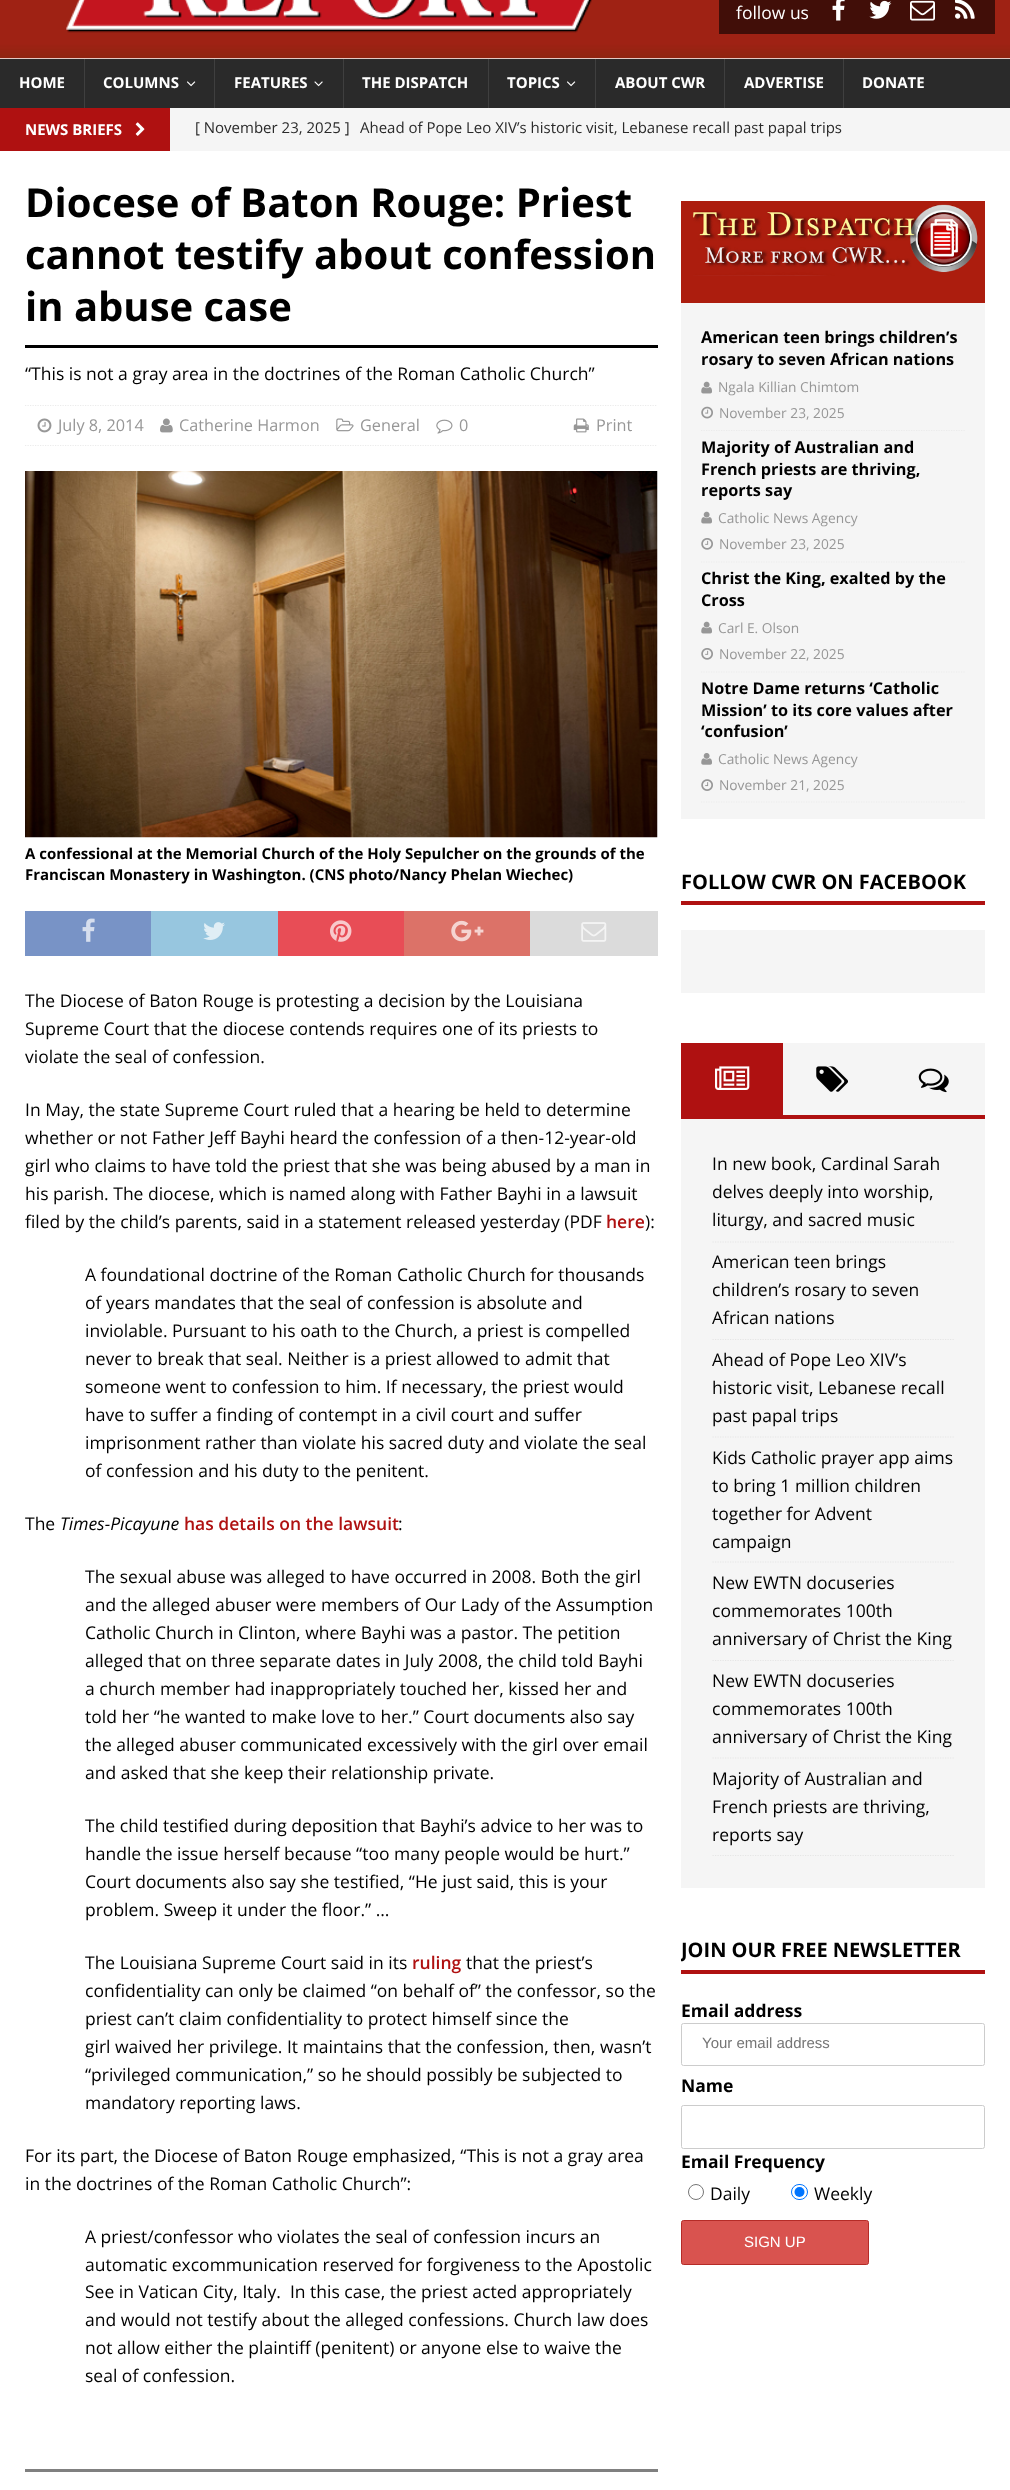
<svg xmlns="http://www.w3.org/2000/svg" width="1010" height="2490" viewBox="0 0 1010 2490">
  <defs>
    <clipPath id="clip1"><rect x="681" y="1938" width="304" height="345"/></clipPath>
  </defs>
  <rect width="100%" height="100%" fill="#ffffff"/>
  <image x="0" y="0" width="1010" height="59" href="img1.png"/>
  <rect x="719" y="0" width="276" height="34" fill="#410e08"/>
  <text x="736" y="19" font-family="Open Sans" font-size="17.5" fill="#ffffff">follow us</text>
  <image x="832" y="0" width="13" height="21" href="img2.png"/>
  <image x="869" y="0" width="23" height="19" href="img3.png"/>
  <image x="910" y="0" width="25" height="21" href="img4.png"/>
  <image x="955" y="0" width="20" height="19" href="img5.png"/>
  <rect x="0" y="59" width="1010" height="49" fill="#2a2a2a"/>
  <text x="19" y="88" font-family="Open Sans" font-size="15" font-weight="bold" fill="#ffffff">HOME</text>
  <rect x="84" y="59" width="1" height="49" fill="#3f3f3f"/>
  <text x="103" y="88" font-family="Open Sans" font-size="15" font-weight="bold" fill="#ffffff">COLUMNS</text>
  <image x="187" y="81" width="9" height="6" href="img6.png"/>
  <rect x="214" y="59" width="1" height="49" fill="#3f3f3f"/>
  <text x="234" y="88" font-family="Open Sans" font-size="15" font-weight="bold" fill="#ffffff">FEATURES</text>
  <image x="314" y="81" width="9" height="6" href="img7.png"/>
  <rect x="343" y="59" width="1" height="49" fill="#3f3f3f"/>
  <text x="362" y="88" font-family="Open Sans" font-size="15" font-weight="bold" fill="#ffffff">THE DISPATCH</text>
  <rect x="488" y="59" width="1" height="49" fill="#3f3f3f"/>
  <text x="507" y="88" font-family="Open Sans" font-size="15" font-weight="bold" fill="#ffffff">TOPICS</text>
  <image x="567" y="81" width="9" height="6" href="img6.png"/>
  <rect x="595" y="59" width="1" height="49" fill="#3f3f3f"/>
  <text x="615" y="88" font-family="Open Sans" font-size="15" font-weight="bold" fill="#ffffff">ABOUT CWR</text>
  <rect x="724" y="59" width="1" height="49" fill="#3f3f3f"/>
  <text x="744" y="88" font-family="Open Sans" font-size="15" font-weight="bold" fill="#ffffff">ADVERTISE</text>
  <rect x="843" y="59" width="1" height="49" fill="#3f3f3f"/>
  <text x="862" y="88" font-family="Open Sans" font-size="15" font-weight="bold" fill="#ffffff">DONATE</text>
  <rect x="170" y="108" width="840" height="43" fill="#f5f5f5"/>
  <rect x="0" y="108" width="170" height="43" fill="#af1111"/>
  <text x="25" y="135" font-family="Open Sans" font-size="15" font-weight="bold" fill="#ffffff">NEWS BRIEFS</text>
  <image x="135" y="122" width="10" height="14" href="img8.png"/>
  <text x="195" y="133" font-family="Open Sans" font-size="15" fill="#2a2a2a">[ November 23, 2025 ]</text>
  <text x="360" y="133" font-family="Open Sans" font-size="15" fill="#2a2a2a">Ahead of Pope Leo XIV’s historic visit, Lebanese recall past papal trips</text>
  <rect x="25" y="345" width="633" height="3" fill="#000000"/>
  <text x="25" y="217" font-family="Open Sans" font-size="40" font-weight="bold" fill="#000000">Diocese of Baton Rouge: Priest</text>
  <text x="25" y="269" font-family="Open Sans" font-size="40" font-weight="bold" fill="#000000">cannot testify about confession</text>
  <text x="25" y="321" font-family="Open Sans" font-size="40" font-weight="bold" fill="#000000">in abuse case</text>
  <text x="25" y="380" font-family="Open Sans" font-size="17.5" fill="#000000">“This is not a gray area in the doctrines of the Roman Catholic Church”</text>
  <path d="M25 405.5H657.5" fill="none" stroke="#ebebeb" stroke-width="1.2" stroke-dasharray="1.25 1.25"/>
  <path d="M25 445.5H657.5" fill="none" stroke="#ebebeb" stroke-width="1.2" stroke-dasharray="1.25 1.25"/>
  <image x="37" y="418" width="15" height="15" href="img9.png"/>
  <text x="58" y="431" font-family="Open Sans" font-size="16.25" fill="#979797">July 8, 2014</text>
  <image x="160" y="418" width="13" height="15" href="img10.png"/>
  <text x="179" y="431" font-family="Open Sans" font-size="16.25" fill="#979797">Catherine Harmon</text>
  <image x="336" y="418" width="18" height="14" href="img11.png"/>
  <text x="360" y="431" font-family="Open Sans" font-size="16.25" fill="#979797">General</text>
  <image x="436" y="419" width="17" height="15" href="img12.png"/>
  <text x="459" y="431" font-family="Open Sans" font-size="16.25" fill="#979797">0</text>
  <image x="573" y="418" width="16" height="15" href="img13.png"/>
  <text x="596" y="431" font-family="Open Sans" font-size="16.25" fill="#979797">Print</text>
  <image x="25" y="471" width="633" height="367" href="img14.png"/>
  <text x="25" y="859" font-family="Open Sans" font-size="15" font-weight="bold" fill="#000000">A confessional at the Memorial Church of the Holy Sepulcher on the grounds of the</text>
  <text x="25" y="880" font-family="Open Sans" font-size="15" font-weight="bold" fill="#000000">Franciscan Monastery in Washington. (CNS photo/Nancy Phelan Wiechec)</text>
  <rect x="25" y="911" width="126" height="45" fill="#7893c6"/>
  <image x="82" y="918" width="13" height="24" href="img15.png"/>
  <rect x="151" y="911" width="127" height="45" fill="#97c6df"/>
  <image x="203" y="922" width="22" height="18" href="img16.png"/>
  <rect x="278" y="911" width="126" height="45" fill="#e84d56"/>
  <image x="330" y="920" width="22" height="22" href="img17.png"/>
  <rect x="404" y="911" width="126" height="45" fill="#dc7268"/>
  <image x="451" y="920" width="33" height="22" href="img18.png"/>
  <rect x="530" y="911" width="128" height="45" fill="#dbdbdb"/>
  <image x="581" y="922" width="26" height="20" href="img19.png"/>
  <text x="25" y="1007" font-family="Open Sans" font-size="17.5" fill="#000000">The Diocese of Baton Rouge is protesting a decision by the Louisiana</text>
  <text x="25" y="1035" font-family="Open Sans" font-size="17.5" fill="#000000">Supreme Court that the diocese contends requires one of its priests to</text>
  <text x="25" y="1063" font-family="Open Sans" font-size="17.5" fill="#000000">violate the seal of confession.</text>
  <text x="25" y="1116" font-family="Open Sans" font-size="17.5" fill="#000000">In May, the state Supreme Court ruled that a hearing be held to determine</text>
  <text x="25" y="1144" font-family="Open Sans" font-size="17.5" fill="#000000">whether or not Father Jeff Bayhi heard the confession of a then-12-year-old</text>
  <text x="25" y="1172" font-family="Open Sans" font-size="17.5" fill="#000000">girl who claims to have told the priest that she was being abused by a man in</text>
  <text x="25" y="1200" font-family="Open Sans" font-size="17.5" fill="#000000">his parish. The diocese, which is named along with Father Bayhi in a lawsuit</text>
  <text x="25" y="1228" font-family="Open Sans" font-size="17.5" fill="#000000">filed by the child’s parents, said in a statement released yesterday (PDF</text>
  <text x="606" y="1228" font-family="Open Sans" font-size="17.5" font-weight="600" fill="#af1111">here</text>
  <text x="645" y="1228" font-family="Open Sans" font-size="17.5" fill="#000000">):</text>
  <text x="85" y="1281" font-family="Open Sans" font-size="17.5" fill="#000000">A foundational doctrine of the Roman Catholic Church for thousands</text>
  <text x="85" y="1309" font-family="Open Sans" font-size="17.5" fill="#000000">of years mandates that the seal of confession is absolute and</text>
  <text x="85" y="1337" font-family="Open Sans" font-size="17.5" fill="#000000">inviolable. Pursuant to his oath to the Church, a priest is compelled</text>
  <text x="85" y="1365" font-family="Open Sans" font-size="17.5" fill="#000000">never to break that seal. Neither is a priest allowed to admit that</text>
  <text x="85" y="1393" font-family="Open Sans" font-size="17.5" fill="#000000">someone went to confession to him. If necessary, the priest would</text>
  <text x="85" y="1421" font-family="Open Sans" font-size="17.5" fill="#000000">have to suffer a finding of contempt in a civil court and suffer</text>
  <text x="85" y="1449" font-family="Open Sans" font-size="17.5" fill="#000000">imprisonment rather than violate his sacred duty and violate the seal</text>
  <text x="85" y="1477" font-family="Open Sans" font-size="17.5" fill="#000000">of confession and his duty to the penitent.</text>
  <text x="25" y="1530" font-family="Open Sans" font-size="17.5" fill="#000000">The</text>
  <text x="60" y="1530" font-family="Open Sans" font-size="17.5" font-style="italic" fill="#000000">Times-Picayune</text>
  <text x="184" y="1530" font-family="Open Sans" font-size="17.5" font-weight="600" fill="#af1111">has details on the lawsuit</text>
  <text x="398" y="1530" font-family="Open Sans" font-size="17.5" fill="#000000">:</text>
  <text x="85" y="1583" font-family="Open Sans" font-size="17.5" fill="#000000">The sexual abuse was alleged to have occurred in 2008. Both the girl</text>
  <text x="85" y="1611" font-family="Open Sans" font-size="17.5" fill="#000000">and the alleged abuser were members of Our Lady of the Assumption</text>
  <text x="85" y="1639" font-family="Open Sans" font-size="17.5" fill="#000000">Catholic Church in Clinton, where Bayhi was a pastor. The petition</text>
  <text x="85" y="1667" font-family="Open Sans" font-size="17.5" fill="#000000">alleged that on three separate dates in July 2008, the child told Bayhi</text>
  <text x="85" y="1695" font-family="Open Sans" font-size="17.5" fill="#000000">a church member had inappropriately touched her, kissed her and</text>
  <text x="85" y="1723" font-family="Open Sans" font-size="17.5" fill="#000000">told her “he wanted to make love to her.” Court documents also say</text>
  <text x="85" y="1751" font-family="Open Sans" font-size="17.5" fill="#000000">the alleged abuser communicated excessively with the girl over email</text>
  <text x="85" y="1779" font-family="Open Sans" font-size="17.5" fill="#000000">and asked that she keep their relationship private.</text>
  <text x="85" y="1832" font-family="Open Sans" font-size="17.5" fill="#000000">The child testified during deposition that Bayhi’s advice to her was to</text>
  <text x="85" y="1860" font-family="Open Sans" font-size="17.5" fill="#000000">handle the issue herself because “too many people would be hurt.”</text>
  <text x="85" y="1888" font-family="Open Sans" font-size="17.5" fill="#000000">Court documents also say she testified, “He just said, this is your</text>
  <text x="85" y="1916" font-family="Open Sans" font-size="17.5" fill="#000000">problem. Sweep it under the floor.” …</text>
  <text x="85" y="1969" font-family="Open Sans" font-size="17.5" fill="#000000">The Louisiana Supreme Court said in its</text>
  <text x="412" y="1969" font-family="Open Sans" font-size="17.5" font-weight="600" fill="#af1111">ruling</text>
  <text x="466" y="1969" font-family="Open Sans" font-size="17.5" fill="#000000">that the priest’s</text>
  <text x="85" y="1997" font-family="Open Sans" font-size="17.5" fill="#000000">confidentiality can only be claimed “on behalf of” the confessor, so the</text>
  <text x="85" y="2025" font-family="Open Sans" font-size="17.5" fill="#000000">priest can’t claim confidentiality to protect himself since the</text>
  <text x="85" y="2053" font-family="Open Sans" font-size="17.5" fill="#000000">girl waived her privilege. It maintains that the confession, then, wasn’t</text>
  <text x="85" y="2081" font-family="Open Sans" font-size="17.5" fill="#000000">“privileged communication,” so he should possibly be subjected to</text>
  <text x="85" y="2109" font-family="Open Sans" font-size="17.5" fill="#000000">mandatory reporting laws.</text>
  <text x="25" y="2162" font-family="Open Sans" font-size="17.5" fill="#000000">For its part, the Diocese of Baton Rouge emphasized, “This is not a gray area</text>
  <text x="25" y="2190" font-family="Open Sans" font-size="17.5" fill="#000000">in the doctrines of the Roman Catholic Church”:</text>
  <text x="85" y="2243" font-family="Open Sans" font-size="17.5" fill="#000000">A priest/confessor who violates the seal of confession incurs an</text>
  <text x="85" y="2271" font-family="Open Sans" font-size="17.5" fill="#000000">automatic excommunication reserved for forgiveness to the Apostolic</text>
  <text x="85" y="2298" font-family="Open Sans" font-size="17.5" fill="#000000" xml:space="preserve">See in Vatican City, Italy.  In this case, the priest acted appropriately</text>
  <text x="85" y="2326" font-family="Open Sans" font-size="17.5" fill="#000000">and would not testify about the alleged confessions. Church law does</text>
  <text x="85" y="2354" font-family="Open Sans" font-size="17.5" fill="#000000">not allow either the plaintiff (penitent) or anyone else to waive the</text>
  <text x="85" y="2382" font-family="Open Sans" font-size="17.5" fill="#000000">seal of confession.</text>
  <rect x="25" y="2469" width="633" height="3" fill="#808080"/>
  <rect x="681" y="303" width="304" height="516" fill="#f5f5f5"/>
  <rect x="681" y="201" width="304" height="102" fill="#ac1d0e"/>
  <image x="693" y="204" width="285" height="72" href="img20.png"/>
  <path d="M701 430.5H965" fill="none" stroke="#ebebeb" stroke-width="1.2" stroke-dasharray="1.25 1.25"/>
  <text x="701" y="343" font-family="Open Sans" font-size="16.25" font-weight="bold" fill="#000000">American teen brings children’s</text>
  <text x="701" y="365" font-family="Open Sans" font-size="16.25" font-weight="bold" fill="#000000">rosary to seven African nations</text>
  <image x="701" y="381" width="11" height="13" href="img21.png"/>
  <text x="718" y="392" font-family="Open Sans" font-size="13.75" fill="#979797">Ngala Killian Chimtom</text>
  <image x="701" y="406" width="12" height="13" href="img22.png"/>
  <text x="719" y="418" font-family="Open Sans" font-size="13.75" fill="#979797">November 23, 2025</text>
  <path d="M701 562H965" fill="none" stroke="#ebebeb" stroke-width="1.2" stroke-dasharray="1.25 1.25"/>
  <text x="701" y="453" font-family="Open Sans" font-size="16.25" font-weight="bold" fill="#000000">Majority of Australian and</text>
  <text x="701" y="475" font-family="Open Sans" font-size="16.25" font-weight="bold" fill="#000000">French priests are thriving,</text>
  <text x="701" y="496" font-family="Open Sans" font-size="16.25" font-weight="bold" fill="#000000">reports say</text>
  <image x="701" y="511" width="11" height="13" href="img21.png"/>
  <text x="718" y="523" font-family="Open Sans" font-size="13.75" fill="#979797">Catholic News Agency</text>
  <image x="701" y="538" width="12" height="12" href="img23.png"/>
  <text x="719" y="549" font-family="Open Sans" font-size="13.75" fill="#979797">November 23, 2025</text>
  <path d="M701 672H965" fill="none" stroke="#ebebeb" stroke-width="1.2" stroke-dasharray="1.25 1.25"/>
  <text x="701" y="584" font-family="Open Sans" font-size="16.25" font-weight="bold" fill="#000000">Christ the King, exalted by the</text>
  <text x="701" y="606" font-family="Open Sans" font-size="16.25" font-weight="bold" fill="#000000">Cross</text>
  <image x="701" y="621" width="11" height="13" href="img21.png"/>
  <text x="718" y="633" font-family="Open Sans" font-size="13.75" fill="#979797">Carl E. Olson</text>
  <image x="701" y="648" width="12" height="12" href="img23.png"/>
  <text x="719" y="659" font-family="Open Sans" font-size="13.75" fill="#979797">November 22, 2025</text>
  <path d="M701 802H965" fill="none" stroke="#ebebeb" stroke-width="1.2" stroke-dasharray="1.25 1.25"/>
  <text x="701" y="694" font-family="Open Sans" font-size="16.25" font-weight="bold" fill="#000000">Notre Dame returns ‘Catholic</text>
  <text x="701" y="716" font-family="Open Sans" font-size="16.25" font-weight="bold" fill="#000000">Mission’ to its core values after</text>
  <text x="701" y="737" font-family="Open Sans" font-size="16.25" font-weight="bold" fill="#000000">‘confusion’</text>
  <image x="701" y="753" width="11" height="12" href="img24.png"/>
  <text x="718" y="764" font-family="Open Sans" font-size="13.75" fill="#979797">Catholic News Agency</text>
  <image x="701" y="779" width="12" height="12" href="img25.png"/>
  <text x="719" y="790" font-family="Open Sans" font-size="13.75" fill="#979797">November 21, 2025</text>
  <rect x="681" y="901" width="304" height="4" fill="#af1111"/>
  <text x="681" y="889" font-family="Open Sans" font-size="20" font-weight="bold" fill="#000000">FOLLOW CWR ON FACEBOOK</text>
  <rect x="681" y="930" width="304" height="63" fill="#f5f5f5"/>
  <rect x="681" y="1115" width="304" height="4" fill="#af1111"/>
  <rect x="681" y="1043" width="102" height="72" fill="#af1111"/>
  <image x="715" y="1066" width="35" height="24" href="img26.png"/>
  <rect x="783" y="1043" width="202" height="72" fill="#f5f5f5"/>
  <image x="816" y="1066" width="32" height="26" href="img27.png"/>
  <image x="918" y="1068" width="31" height="25" href="img28.png"/>
  <rect x="681" y="1119" width="304" height="769" fill="#f5f5f5"/>
  <path d="M712.5 1242H954" fill="none" stroke="#e5e5e5" stroke-width="1.2" stroke-dasharray="1.25 1.25"/>
  <text x="712" y="1170" font-family="Open Sans" font-size="17.5" fill="#000000">In new book, Cardinal Sarah</text>
  <text x="712" y="1198" font-family="Open Sans" font-size="17.5" fill="#000000">delves deeply into worship,</text>
  <text x="712" y="1226" font-family="Open Sans" font-size="17.5" fill="#000000">liturgy, and sacred music</text>
  <path d="M712.5 1339.5H954" fill="none" stroke="#e5e5e5" stroke-width="1.2" stroke-dasharray="1.25 1.25"/>
  <text x="712" y="1268" font-family="Open Sans" font-size="17.5" fill="#000000">American teen brings</text>
  <text x="712" y="1296" font-family="Open Sans" font-size="17.5" fill="#000000">children’s rosary to seven</text>
  <text x="712" y="1324" font-family="Open Sans" font-size="17.5" fill="#000000">African nations</text>
  <path d="M712.5 1437H954" fill="none" stroke="#e5e5e5" stroke-width="1.2" stroke-dasharray="1.25 1.25"/>
  <text x="712" y="1366" font-family="Open Sans" font-size="17.5" fill="#000000">Ahead of Pope Leo XIV’s</text>
  <text x="712" y="1394" font-family="Open Sans" font-size="17.5" fill="#000000">historic visit, Lebanese recall</text>
  <text x="712" y="1422" font-family="Open Sans" font-size="17.5" fill="#000000">past papal trips</text>
  <path d="M712.5 1562H954" fill="none" stroke="#e5e5e5" stroke-width="1.2" stroke-dasharray="1.25 1.25"/>
  <text x="712" y="1464" font-family="Open Sans" font-size="17.5" fill="#000000">Kids Catholic prayer app aims</text>
  <text x="712" y="1492" font-family="Open Sans" font-size="17.5" fill="#000000">to bring 1 million children</text>
  <text x="712" y="1520" font-family="Open Sans" font-size="17.5" fill="#000000">together for Advent</text>
  <text x="712" y="1548" font-family="Open Sans" font-size="17.5" fill="#000000">campaign</text>
  <path d="M712.5 1660.5H954" fill="none" stroke="#e5e5e5" stroke-width="1.2" stroke-dasharray="1.25 1.25"/>
  <text x="712" y="1589" font-family="Open Sans" font-size="17.5" fill="#000000">New EWTN docuseries</text>
  <text x="712" y="1617" font-family="Open Sans" font-size="17.5" fill="#000000">commemorates 100th</text>
  <text x="712" y="1645" font-family="Open Sans" font-size="17.5" fill="#000000">anniversary of Christ the King</text>
  <path d="M712.5 1758H954" fill="none" stroke="#e5e5e5" stroke-width="1.2" stroke-dasharray="1.25 1.25"/>
  <text x="712" y="1687" font-family="Open Sans" font-size="17.5" fill="#000000">New EWTN docuseries</text>
  <text x="712" y="1715" font-family="Open Sans" font-size="17.5" fill="#000000">commemorates 100th</text>
  <text x="712" y="1743" font-family="Open Sans" font-size="17.5" fill="#000000">anniversary of Christ the King</text>
  <path d="M712.5 1855.5H954" fill="none" stroke="#e5e5e5" stroke-width="1.2" stroke-dasharray="1.25 1.25"/>
  <text x="712" y="1785" font-family="Open Sans" font-size="17.5" fill="#000000">Majority of Australian and</text>
  <text x="712" y="1813" font-family="Open Sans" font-size="17.5" fill="#000000">French priests are thriving,</text>
  <text x="712" y="1841" font-family="Open Sans" font-size="17.5" fill="#000000">reports say</text>
  <rect x="681" y="1970" width="304" height="4" fill="#af1111"/>
  <g clip-path="url(#clip1)">
    <text x="681" y="1957" font-family="Open Sans" font-size="20" font-weight="bold" fill="#000000">JOIN OUR FREE NEWSLETTER</text>
  </g>
  <text x="681" y="2017" font-family="Open Sans" font-size="17.5" font-weight="bold" fill="#000000">Email address</text>
  <rect x="681.5" y="2023.5" width="303" height="42" rx="2" fill="none" stroke="#cccccc"/>
  <text x="702" y="2048" font-family="Liberation Sans" font-size="15" fill="#757575">Your email address</text>
  <text x="681" y="2092" font-family="Open Sans" font-size="17.5" font-weight="bold" fill="#000000">Name</text>
  <rect x="681.5" y="2105.5" width="303" height="43" rx="2" fill="none" stroke="#cccccc"/>
  <text x="681" y="2168" font-family="Open Sans" font-size="17.5" font-weight="bold" fill="#000000">Email Frequency</text>
  <circle cx="696" cy="2192" r="7.5" fill="none" stroke="#767676"/>
  <text x="710" y="2200" font-family="Open Sans" font-size="17.5" fill="#000000">Daily</text>
  <rect x="791.5" y="2184.5" width="16" height="15" rx="7.5" fill="none" stroke="#0075ff"/>
  <circle cx="799.5" cy="2192" r="5" fill="#0075ff"/>
  <text x="814" y="2200" font-family="Open Sans" font-size="17.5" fill="#000000">Weekly</text>
  <rect x="681.5" y="2220.5" width="187" height="44" rx="2" fill="#d9534f" stroke="#b52b27"/>
  <text x="744" y="2247" font-family="Liberation Sans" font-size="15" fill="#ffffff">SIGN UP</text>
</svg>
